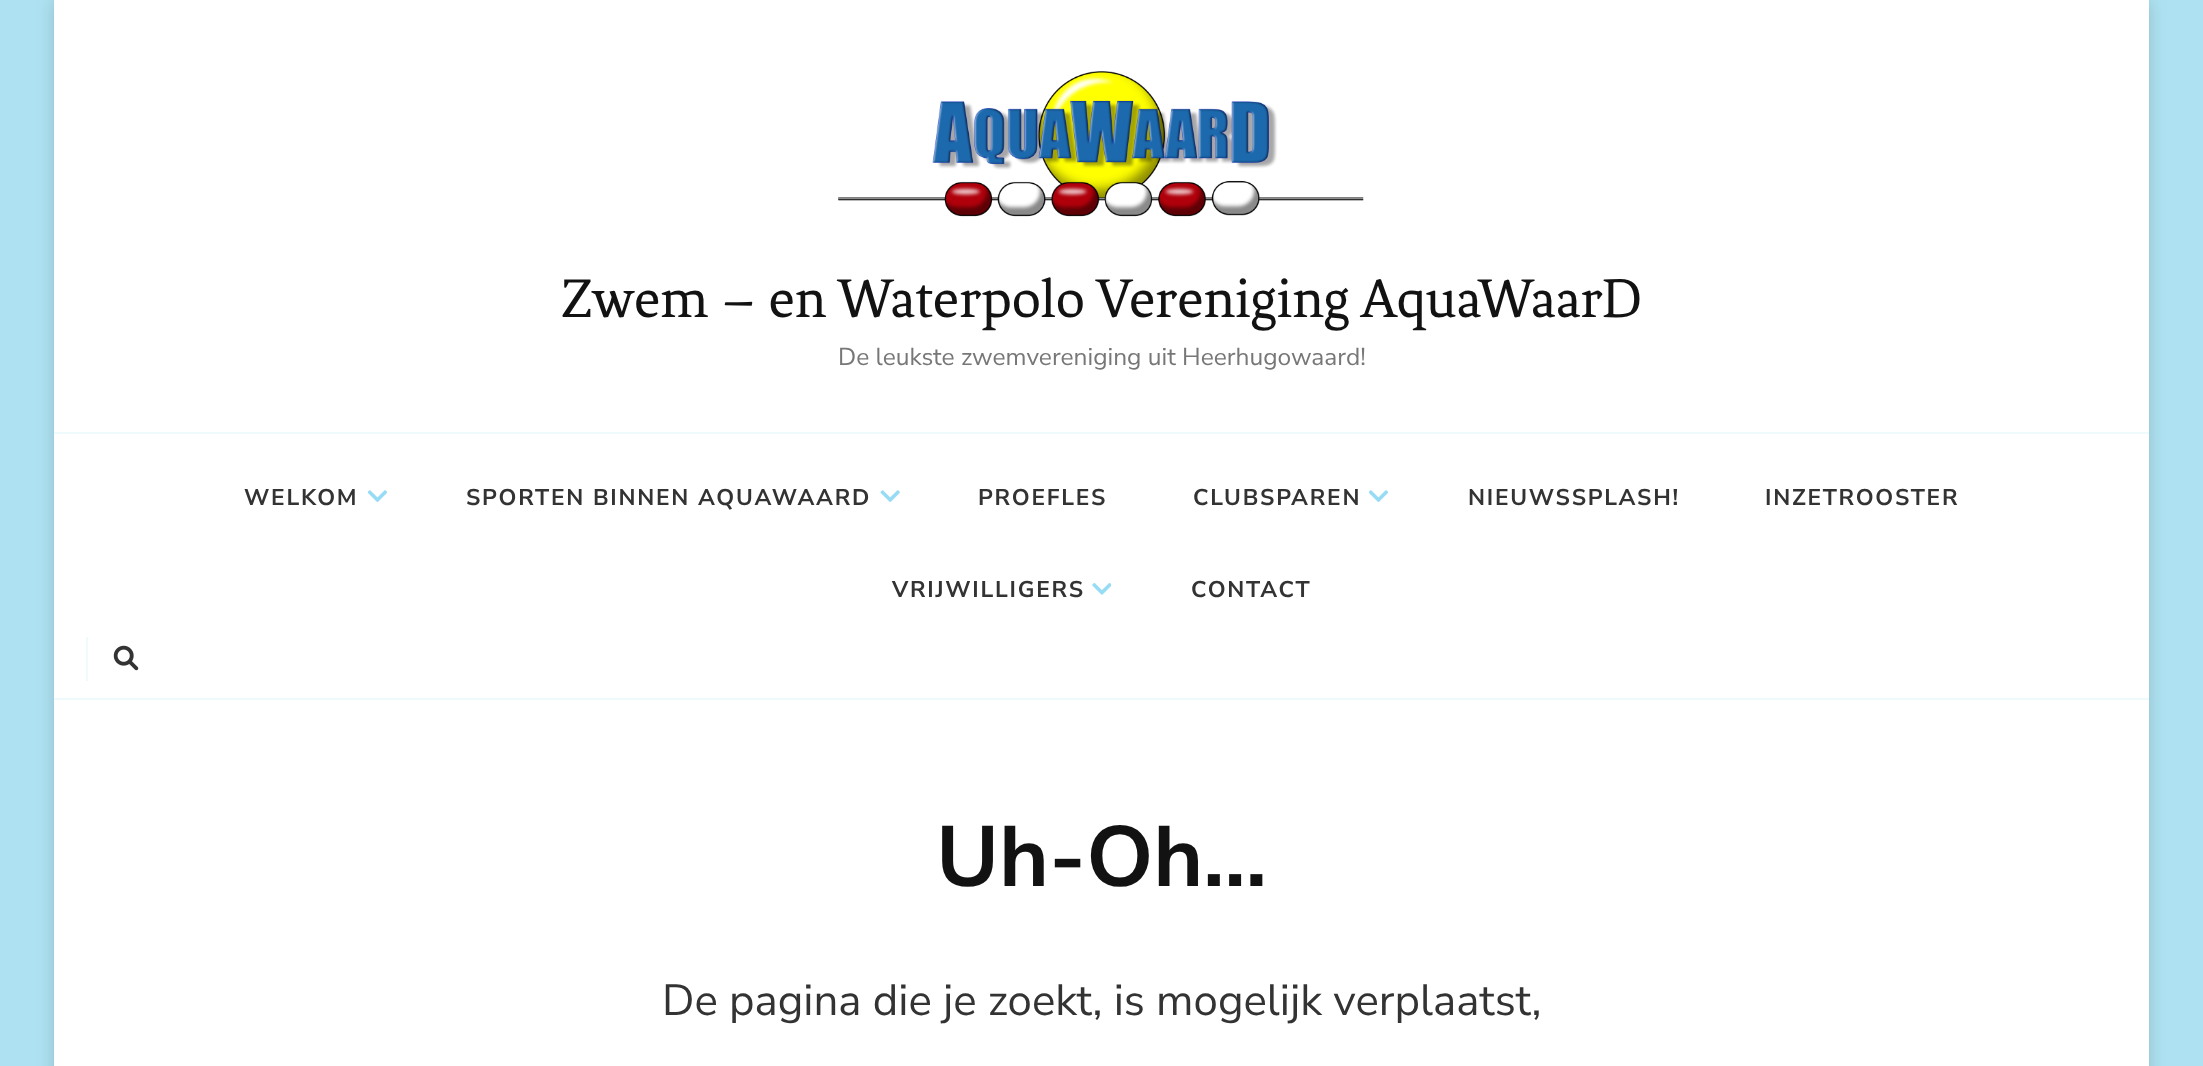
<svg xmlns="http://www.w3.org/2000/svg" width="2203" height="1066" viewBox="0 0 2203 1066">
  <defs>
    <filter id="blur1" x="-50%" y="-200%" width="200%" height="500%"><feGaussianBlur stdDeviation="9"/></filter>
  </defs>
  <rect width="100%" height="100%" fill="#aee2f2"/>
  <rect x="54" y="0" width="2095" height="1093" fill="#000000" fill-opacity="0.16" filter="url(#blur1)"/>
  <rect x="54" y="0" width="2095" height="1066" fill="#ffffff"/>
  <image x="838" y="71" width="526" height="146" href="img1.png"/>
  <text x="561" y="317" font-family="Fenix" font-size="57.75" fill="#121212">Zwem – en Waterpolo Vereniging AquaWaarD</text>
  <text x="838" y="365" font-family="Nunito Sans" font-size="24.5" fill="#777777">De leukste zwemvereniging uit Heerhugowaard!</text>
  <rect x="54" y="432" width="2095" height="2" fill="#effafd"/>
  <rect x="54" y="698" width="2095" height="2" fill="#effafd"/>
  <text x="244" y="505" font-family="Nunito Sans" font-size="22.75" font-weight="bold" letter-spacing="1.75" fill="#333333">WELKOM</text>
  <image x="368" y="490" width="19" height="12" href="img2.png"/>
  <text x="466" y="505" font-family="Nunito Sans" font-size="22.75" font-weight="bold" letter-spacing="1.75" fill="#333333">SPORTEN BINNEN AQUAWAARD</text>
  <image x="880" y="490" width="20" height="12" href="img3.png"/>
  <text x="978" y="505" font-family="Nunito Sans" font-size="22.75" font-weight="bold" letter-spacing="1.75" fill="#333333">PROEFLES</text>
  <text x="1193" y="505" font-family="Nunito Sans" font-size="22.75" font-weight="bold" letter-spacing="1.75" fill="#333333">CLUBSPAREN</text>
  <image x="1369" y="490" width="20" height="12" href="img4.png"/>
  <text x="1468" y="505" font-family="Nunito Sans" font-size="22.75" font-weight="bold" letter-spacing="1.75" fill="#333333">NIEUWSSPLASH!</text>
  <text x="1765" y="505" font-family="Nunito Sans" font-size="22.75" font-weight="bold" letter-spacing="1.75" fill="#333333">INZETROOSTER</text>
  <text x="892" y="597" font-family="Nunito Sans" font-size="22.75" font-weight="bold" letter-spacing="1.75" fill="#333333">VRIJWILLIGERS</text>
  <image x="1092" y="583" width="19" height="12" href="img5.png"/>
  <text x="1191" y="597" font-family="Nunito Sans" font-size="22.75" font-weight="bold" letter-spacing="1.75" fill="#333333">CONTACT</text>
  <rect x="86" y="637" width="2" height="44" fill="#effafd"/>
  <image x="113" y="645" width="26" height="26" href="img6.png"/>
  <text x="936" y="886" font-family="Nunito Sans" font-size="85.5" font-weight="bold" fill="#121212">Uh-Oh...</text>
  <text x="662" y="1015" font-family="Nunito Sans" font-size="43.75" fill="#333333">De pagina die je zoekt, is mogelijk verplaatst,</text>
</svg>
